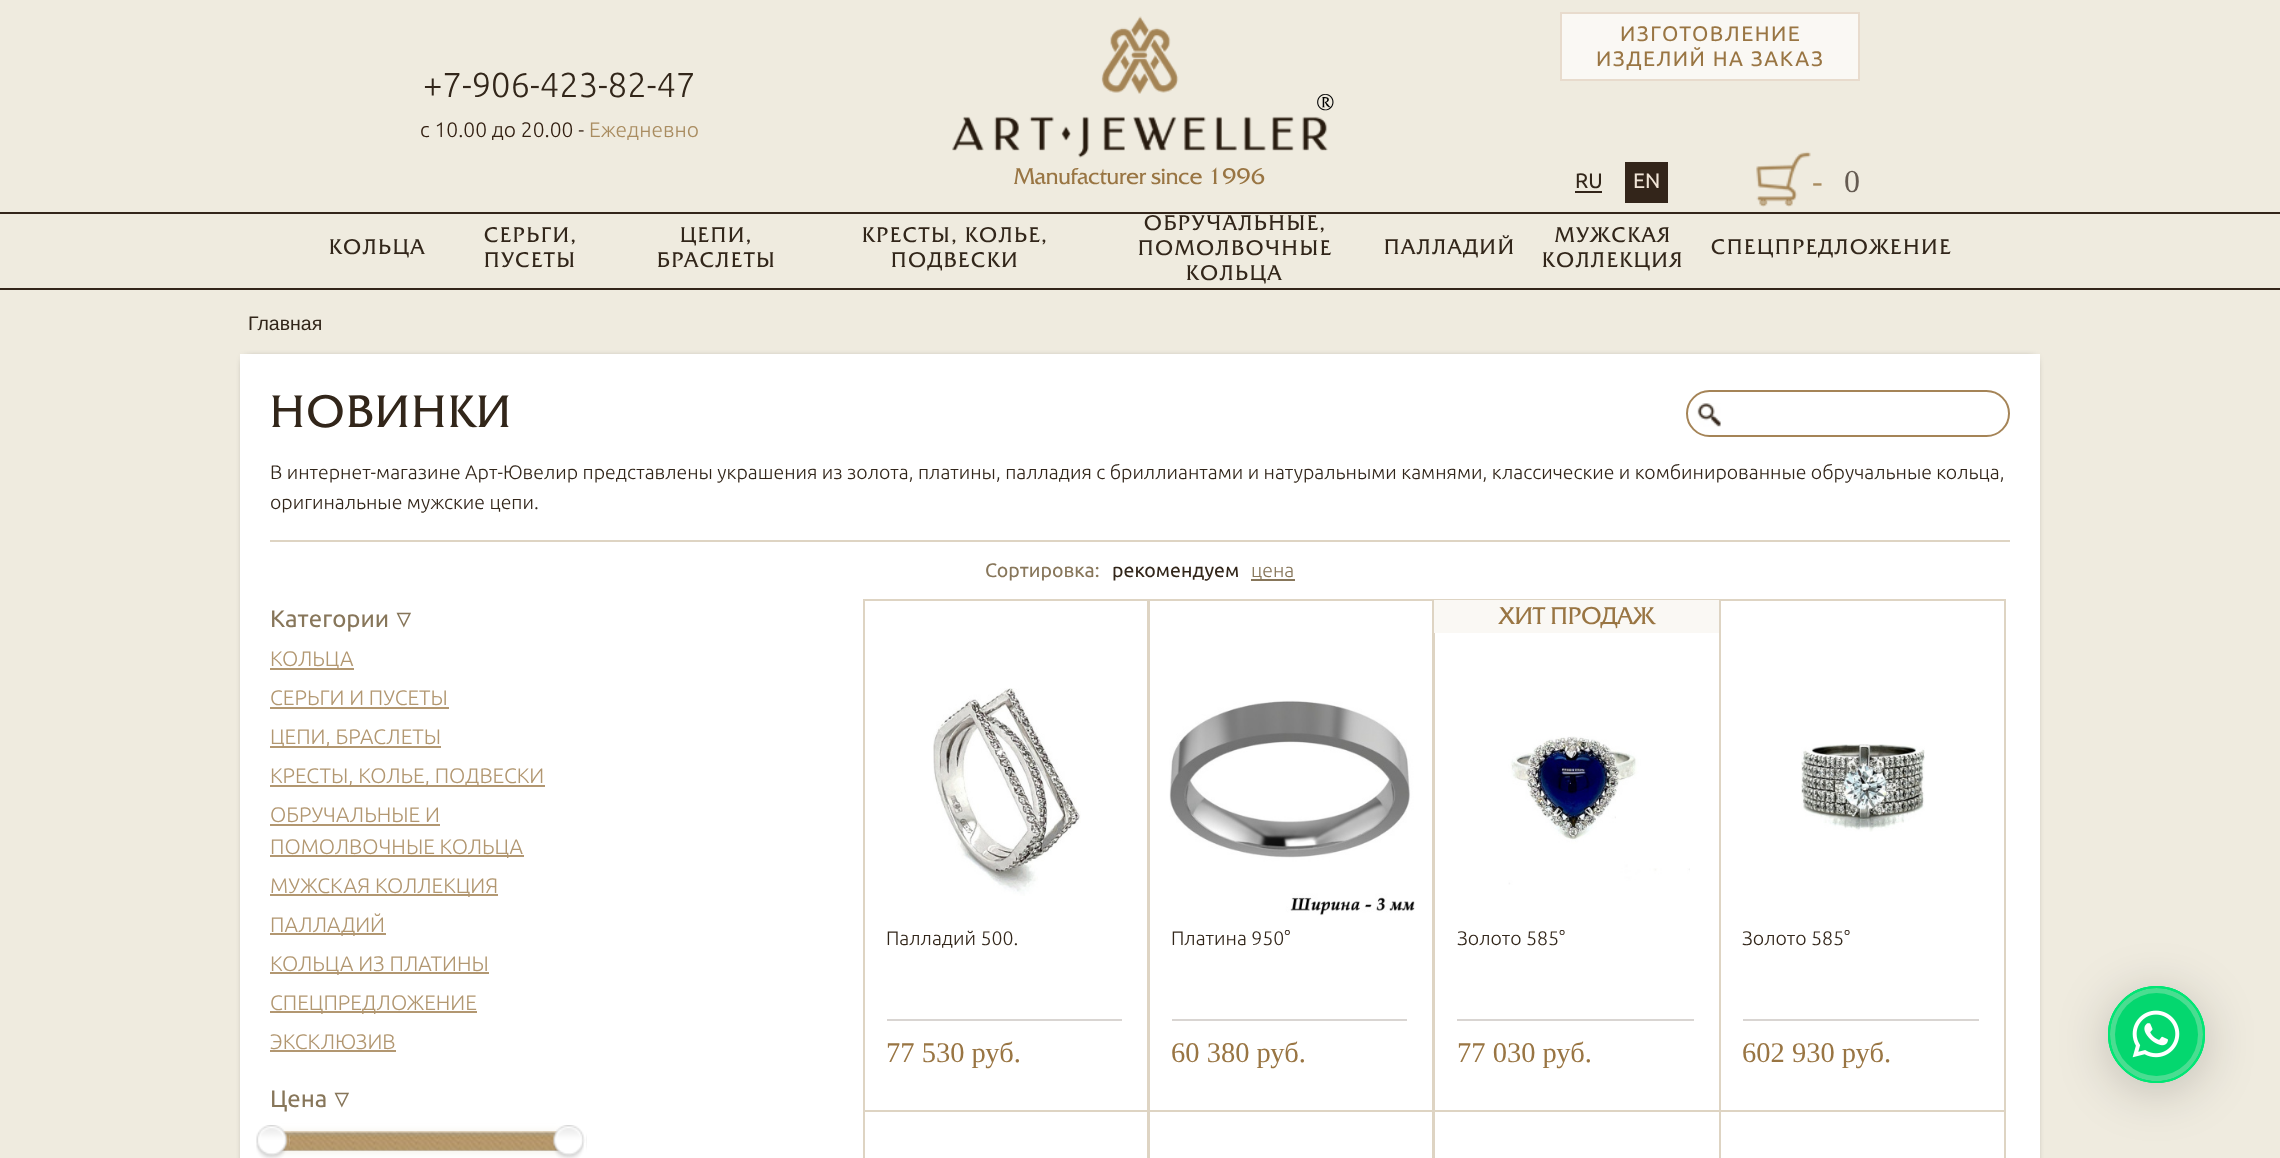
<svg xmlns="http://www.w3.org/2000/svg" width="2280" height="1158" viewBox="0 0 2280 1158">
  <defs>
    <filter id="blur1" x="-50%" y="-200%" width="200%" height="500%"><feGaussianBlur stdDeviation="4.5"/></filter>
    <filter id="blur2" x="-50%" y="-200%" width="200%" height="500%"><feGaussianBlur stdDeviation="4"/></filter>
    <clipPath id="clip1"><path d="M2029 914H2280V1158H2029ZM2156.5 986C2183.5 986 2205 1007.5 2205 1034.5C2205 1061.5 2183.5 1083 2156.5 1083C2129.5 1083 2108 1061.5 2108 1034.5C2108 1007.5 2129.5 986 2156.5 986Z" clip-rule="evenodd"/></clipPath>
    <filter id="blur3" x="-50%" y="-200%" width="200%" height="500%"><feGaussianBlur stdDeviation="26"/></filter>
  </defs>
  <rect width="100%" height="100%" fill="#efebdf"/>
  <rect x="1561" y="13" width="298" height="67" fill="#faf8f4" stroke="#e8dbcd" stroke-width="2"/>
  <text x="1620" y="41" font-family="Ubuntu" font-size="21" letter-spacing="1.5" fill="#997543">ИЗГОТОВЛЕНИЕ</text>
  <text x="1596" y="66" font-family="Ubuntu" font-size="21" letter-spacing="1.5" fill="#997543">ИЗДЕЛИЙ НА ЗАКАЗ</text>
  <text x="423" y="97" font-family="Ubuntu" font-size="34.5" font-weight="300" fill="#32261a">+7-906-423-82-47</text>
  <text x="420" y="137" font-family="Ubuntu" font-size="21" font-weight="300" fill="#332012">с 10.00 до 20.00 -</text>
  <text x="589" y="137" font-family="Ubuntu" font-size="21" font-weight="300" fill="#a98c60">Ежедневно</text>
  <image x="952" y="16" width="376" height="142" href="img1.png"/>
  <text x="1316" y="110" font-family="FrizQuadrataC" font-size="22.5" fill="#000000">®</text>
  <text x="1014" y="184" font-family="FrizQuadrataC" font-size="22.5" fill="#997543">Manufacturer since 1996</text>
  <text x="1575" y="188" font-family="Ubuntu" font-size="21" fill="#32261a">RU</text>
  <rect x="1575" y="191" width="27" height="2" fill="#33251a"/>
  <rect x="1625" y="162" width="43" height="41" fill="#33251a"/>
  <text x="1633" y="188" font-family="Ubuntu" font-size="21" fill="#f1e5d7">EN</text>
  <image x="1756" y="151" width="55" height="56" href="img2.png"/>
  <text x="1812" y="192" font-family="Liberation Serif" font-size="32" fill="#a98c60">-</text>
  <text x="1844" y="192" font-family="Liberation Serif" font-size="32" fill="#655b52">0</text>
  <rect x="0" y="212" width="2280" height="2" fill="#33251a"/>
  <rect x="0" y="288" width="2280" height="2" fill="#33251a"/>
  <text x="329" y="254" font-family="FrizQuadrataC" font-size="21" letter-spacing="2" fill="#32261a">КОЛЬЦА</text>
  <text x="484" y="242" font-family="FrizQuadrataC" font-size="21" letter-spacing="2" fill="#32261a">СЕРЬГИ,</text>
  <text x="484" y="267" font-family="FrizQuadrataC" font-size="21" letter-spacing="2" fill="#32261a">ПУСЕТЫ</text>
  <text x="680" y="242" font-family="FrizQuadrataC" font-size="21" letter-spacing="2" fill="#32261a">ЦЕПИ,</text>
  <text x="657" y="267" font-family="FrizQuadrataC" font-size="21" letter-spacing="2" fill="#32261a">БРАСЛЕТЫ</text>
  <text x="862" y="242" font-family="FrizQuadrataC" font-size="21" letter-spacing="2" fill="#32261a">КРЕСТЫ, КОЛЬЕ,</text>
  <text x="891" y="267" font-family="FrizQuadrataC" font-size="21" letter-spacing="2" fill="#32261a">ПОДВЕСКИ</text>
  <text x="1144" y="230" font-family="FrizQuadrataC" font-size="21" letter-spacing="2" fill="#32261a">ОБРУЧАЛЬНЫЕ,</text>
  <text x="1138" y="255" font-family="FrizQuadrataC" font-size="21" letter-spacing="2" fill="#32261a">ПОМОЛВОЧНЫЕ</text>
  <text x="1186" y="280" font-family="FrizQuadrataC" font-size="21" letter-spacing="2" fill="#32261a">КОЛЬЦА</text>
  <text x="1384" y="254" font-family="FrizQuadrataC" font-size="21" letter-spacing="2" fill="#32261a">ПАЛЛАДИЙ</text>
  <text x="1555" y="242" font-family="FrizQuadrataC" font-size="21" letter-spacing="2" fill="#32261a">МУЖСКАЯ</text>
  <text x="1542" y="267" font-family="FrizQuadrataC" font-size="21" letter-spacing="2" fill="#32261a">КОЛЛЕКЦИЯ</text>
  <text x="1711" y="254" font-family="FrizQuadrataC" font-size="21" letter-spacing="2" fill="#32261a">СПЕЦПРЕДЛОЖЕНИЕ</text>
  <text x="248" y="330" font-family="Liberation Sans" font-size="19.5" fill="#32261a">Главная</text>
  <rect x="246" y="360" width="1788" height="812" fill="#000000" filter="url(#blur1)"/>
  <rect x="240" y="354" width="1800" height="804" fill="#ffffff"/>
  <rect x="270" y="540" width="1740" height="2" fill="#ded4c3"/>
  <text x="270" y="427" font-family="FrizQuadrataC" font-size="45" letter-spacing="2" fill="#32261a">НОВИНКИ</text>
  <image x="1697" y="403" width="24" height="24" href="img3.png"/>
  <rect x="1687" y="391" width="322" height="45" rx="22.5" fill="none" stroke="#a58457" stroke-width="2"/>
  <text x="270" y="479" font-family="Ubuntu" font-size="19.5" font-weight="300" fill="#32261a">В интернет-магазине Арт-Ювелир представлены украшения из золота, платины, палладия с бриллиантами и натуральными камнями, классические и комбинированные обручальные кольца,</text>
  <text x="270" y="509" font-family="Ubuntu" font-size="19.5" font-weight="300" fill="#32261a">оригинальные мужские цепи.</text>
  <text x="985" y="577" font-family="Ubuntu" font-size="19.5" fill="#87765a">Сортировка:</text>
  <text x="1112" y="577" font-family="Ubuntu" font-size="19.5" fill="#32261a">рекомендуем</text>
  <rect x="1251" y="579" width="44" height="2" fill="#87765a"/>
  <text x="1251" y="577" font-family="Ubuntu" font-size="19.5" font-weight="300" fill="#87765a">цена</text>
  <text x="270" y="627" font-family="Ubuntu" font-size="24" fill="#87765a">Категории</text>
  <text x="411" y="615" transform="rotate(180 411 615)" font-family="DejaVu Sans" font-size="18" font-weight="bold" fill="#87765a">△</text>
  <rect x="270" y="668" width="84" height="2" fill="#b29771"/>
  <text x="270" y="666" font-family="Ubuntu" font-size="21" font-weight="300" fill="#b29771">КОЛЬЦА</text>
  <text x="270" y="705" font-family="Ubuntu" font-size="21" font-weight="300" fill="#b29771">СЕРЬГИ И ПУСЕТЫ</text>
  <rect x="270" y="707" width="179" height="2" fill="#b29771"/>
  <rect x="270" y="746" width="171" height="2" fill="#b29771"/>
  <text x="270" y="744" font-family="Ubuntu" font-size="21" font-weight="300" fill="#b29771">ЦЕПИ, БРАСЛЕТЫ</text>
  <rect x="270" y="785" width="275" height="2" fill="#b29771"/>
  <text x="270" y="783" font-family="Ubuntu" font-size="21" font-weight="300" fill="#b29771">КРЕСТЫ, КОЛЬЕ, ПОДВЕСКИ</text>
  <text x="270" y="822" font-family="Ubuntu" font-size="21" font-weight="300" fill="#b29771">ОБРУЧАЛЬНЫЕ И</text>
  <rect x="270" y="824" width="170" height="2" fill="#b29771"/>
  <rect x="270" y="855" width="254" height="2" fill="#b29771"/>
  <text x="270" y="854" font-family="Ubuntu" font-size="21" font-weight="300" fill="#b29771">ПОМОЛВОЧНЫЕ КОЛЬЦА</text>
  <rect x="270" y="894" width="228" height="2" fill="#b29771"/>
  <text x="270" y="893" font-family="Ubuntu" font-size="21" font-weight="300" fill="#b29771">МУЖСКАЯ КОЛЛЕКЦИЯ</text>
  <rect x="270" y="933" width="116" height="2" fill="#b29771"/>
  <text x="270" y="932" font-family="Ubuntu" font-size="21" font-weight="300" fill="#b29771">ПАЛЛАДИЙ</text>
  <rect x="270" y="972" width="219" height="2" fill="#b29771"/>
  <text x="270" y="971" font-family="Ubuntu" font-size="21" font-weight="300" fill="#b29771">КОЛЬЦА ИЗ ПЛАТИНЫ</text>
  <rect x="270" y="1011" width="207" height="2" fill="#b29771"/>
  <text x="270" y="1010" font-family="Ubuntu" font-size="21" font-weight="300" fill="#b29771">СПЕЦПРЕДЛОЖЕНИЕ</text>
  <text x="270" y="1049" font-family="Ubuntu" font-size="21" font-weight="300" fill="#b29771">ЭКСКЛЮЗИВ</text>
  <rect x="270" y="1050" width="126" height="2" fill="#b29771"/>
  <text x="270" y="1107" font-family="Ubuntu" font-size="24" fill="#87765a">Цена</text>
  <text x="349" y="1095" transform="rotate(180 349 1095)" font-family="DejaVu Sans" font-size="18" font-weight="bold" fill="#87765a">△</text>
  <rect x="270" y="1133" width="297" height="18" rx="9" fill="#efebdf" filter="url(#blur2)"/>
  <rect x="271" y="1134" width="295" height="16" rx="8" fill="none" stroke="#d3d3d3" stroke-width="2"/>
  <image x="280" y="1131" width="280" height="20" href="img5.png"/>
  <image x="256" y="1125" width="34" height="33" href="img4.png"/>
  <image x="552" y="1125" width="35" height="33" href="img6.png"/>
  <rect x="864" y="600" width="284" height="511" fill="none" stroke="#ded4c3" stroke-width="2"/>
  <image x="933" y="688" width="148" height="208" href="img7.png"/>
  <rect x="887" y="1019" width="235" height="2" fill="#d9d5d2"/>
  <text x="886" y="945" font-family="Ubuntu" font-size="19.5" font-weight="300" fill="#32261a">Палладий 500.</text>
  <text x="886" y="1062" font-family="Liberation Serif" font-size="28.5" fill="#997543">77 530 руб.</text>
  <rect x="1149" y="600" width="284" height="511" fill="none" stroke="#ded4c3" stroke-width="2"/>
  <image x="1169" y="700" width="246" height="216" href="img8.png"/>
  <rect x="1172" y="1019" width="235" height="2" fill="#d9d5d2"/>
  <text x="1171" y="945" font-family="Ubuntu" font-size="19.5" font-weight="300" fill="#32261a">Платина 950°</text>
  <text x="1171" y="1062" font-family="Liberation Serif" font-size="28.5" fill="#997543">60 380 руб.</text>
  <rect x="1434" y="600" width="286" height="511" fill="none" stroke="#ded4c3" stroke-width="2"/>
  <rect x="1434" y="600" width="285" height="33" fill="#faf8f4"/>
  <text x="1499" y="624" font-family="FrizQuadrataC" font-size="24" fill="#997543">ХИТ ПРОДАЖ</text>
  <image x="1508" y="736" width="182" height="149" href="img9.png"/>
  <rect x="1457" y="1019" width="237" height="2" fill="#d9d5d2"/>
  <text x="1457" y="945" font-family="Ubuntu" font-size="19.5" font-weight="300" fill="#32261a">Золото 585°</text>
  <text x="1457" y="1062" font-family="Liberation Serif" font-size="28.5" fill="#997543">77 030 руб.</text>
  <rect x="1720" y="600" width="285" height="511" fill="none" stroke="#ded4c3" stroke-width="2"/>
  <image x="1801" y="744" width="124" height="88" href="img10.png"/>
  <rect x="1743" y="1019" width="236" height="2" fill="#d9d5d2"/>
  <text x="1742" y="945" font-family="Ubuntu" font-size="19.5" font-weight="300" fill="#32261a">Золото 585°</text>
  <text x="1742" y="1062" font-family="Liberation Serif" font-size="28.5" fill="#997543">602 930 руб.</text>
  <rect x="864" y="1111" width="284" height="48" fill="none" stroke="#ded4c3" stroke-width="2"/>
  <rect x="1149" y="1111" width="284" height="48" fill="none" stroke="#ded4c3" stroke-width="2"/>
  <rect x="1434" y="1111" width="286" height="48" fill="none" stroke="#ded4c3" stroke-width="2"/>
  <rect x="1720" y="1111" width="285" height="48" fill="none" stroke="#ded4c3" stroke-width="2"/>
  <g clip-path="url(#clip1)">
    <rect x="2108" y="993" width="97" height="98" rx="48.5" fill="#000000" fill-opacity="0.2" filter="url(#blur3)"/>
  </g>
  <circle cx="2156.5" cy="1034.5" r="47.5" fill="#04d76f" fill-opacity="0.7" stroke="#01e675" stroke-width="2"/>
  <circle cx="2156.5" cy="1034.5" r="47.5" fill="none" stroke="#01e675" stroke-width="2"/>
  <circle cx="2156.5" cy="1034.5" r="47.5" fill="none" stroke="#01e675" stroke-width="2"/>
  <circle cx="2156.5" cy="1034.5" r="41.5" fill="#04d76f"/>
  <image x="2132" y="1010" width="48" height="48" href="img11.png"/>
</svg>
